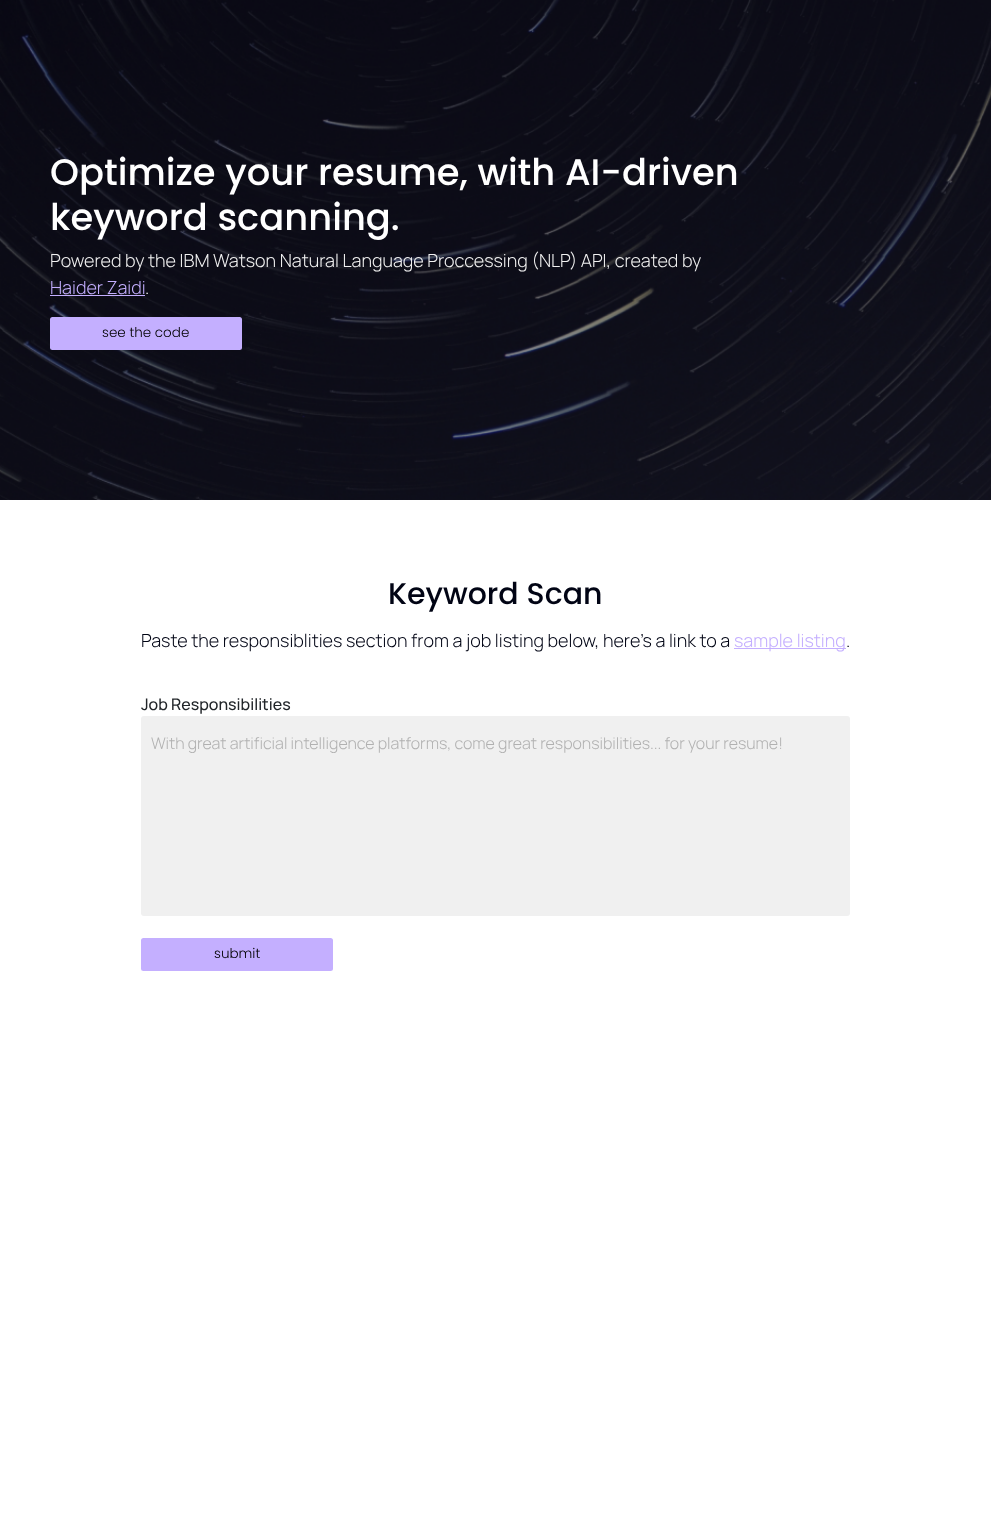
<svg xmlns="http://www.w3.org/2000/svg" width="991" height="1513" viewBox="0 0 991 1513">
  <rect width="100%" height="100%" fill="#ffffff"/>
  <image x="0" y="0" width="991" height="500" href="img1.png"/>
  <text x="50" y="185" font-family="Poppins" font-size="36.9" font-weight="500" fill="#ffffff">Optimize your resume, with AI-driven</text>
  <text x="50" y="230" font-family="Poppins" font-size="36.9" font-weight="500" fill="#ffffff">keyword scanning.</text>
  <text x="50" y="267" font-family="Manrope" font-size="18" font-weight="300" fill="#f1f1f1">Powered by the IBM Watson Natural Language Proccessing (NLP) API, created by</text>
  <text x="50" y="294" font-family="Manrope" font-size="18" font-weight="300" fill="#c4afff">Haider Zaidi</text>
  <rect x="50" y="295" width="95" height="1" fill="#c4afff"/>
  <text x="145" y="294" font-family="Manrope" font-size="18" font-weight="300" fill="#f1f1f1">.</text>
  <rect x="50" y="317" width="192" height="33" rx="2.5" fill="#c4afff"/>
  <text x="102" y="337" font-family="Poppins" font-size="13.5" font-weight="300" fill="#000000">see the code</text>
  <text x="388" y="604" font-family="Poppins" font-size="30" font-weight="500" fill="#010414">Keyword Scan</text>
  <text x="141" y="647" font-family="Manrope" font-size="18" font-weight="300" fill="#010414">Paste the responsiblities section from a job listing below, here's a link to a</text>
  <rect x="734" y="648" width="112" height="1" fill="#c4afff"/>
  <text x="734" y="647" font-family="Manrope" font-size="18" font-weight="300" fill="#c4afff">sample listing</text>
  <text x="846" y="647" font-family="Manrope" font-size="18" font-weight="300" fill="#010414">.</text>
  <text x="141" y="710" font-family="Manrope" font-size="16" font-weight="500" fill="#212529">Job Responsibilities</text>
  <rect x="141" y="716" width="709" height="200" rx="3" fill="#f0f0f0"/>
  <text x="151" y="749" font-family="Manrope" font-size="16" font-weight="300" fill="#b1b1b1">With great artificial intelligence platforms, come great responsibilities... for your resume!</text>
  <rect x="141" y="938" width="192" height="33" rx="2.5" fill="#c4afff"/>
  <text x="214" y="958" font-family="Poppins" font-size="13.5" font-weight="300" fill="#000000">submit</text>
</svg>
